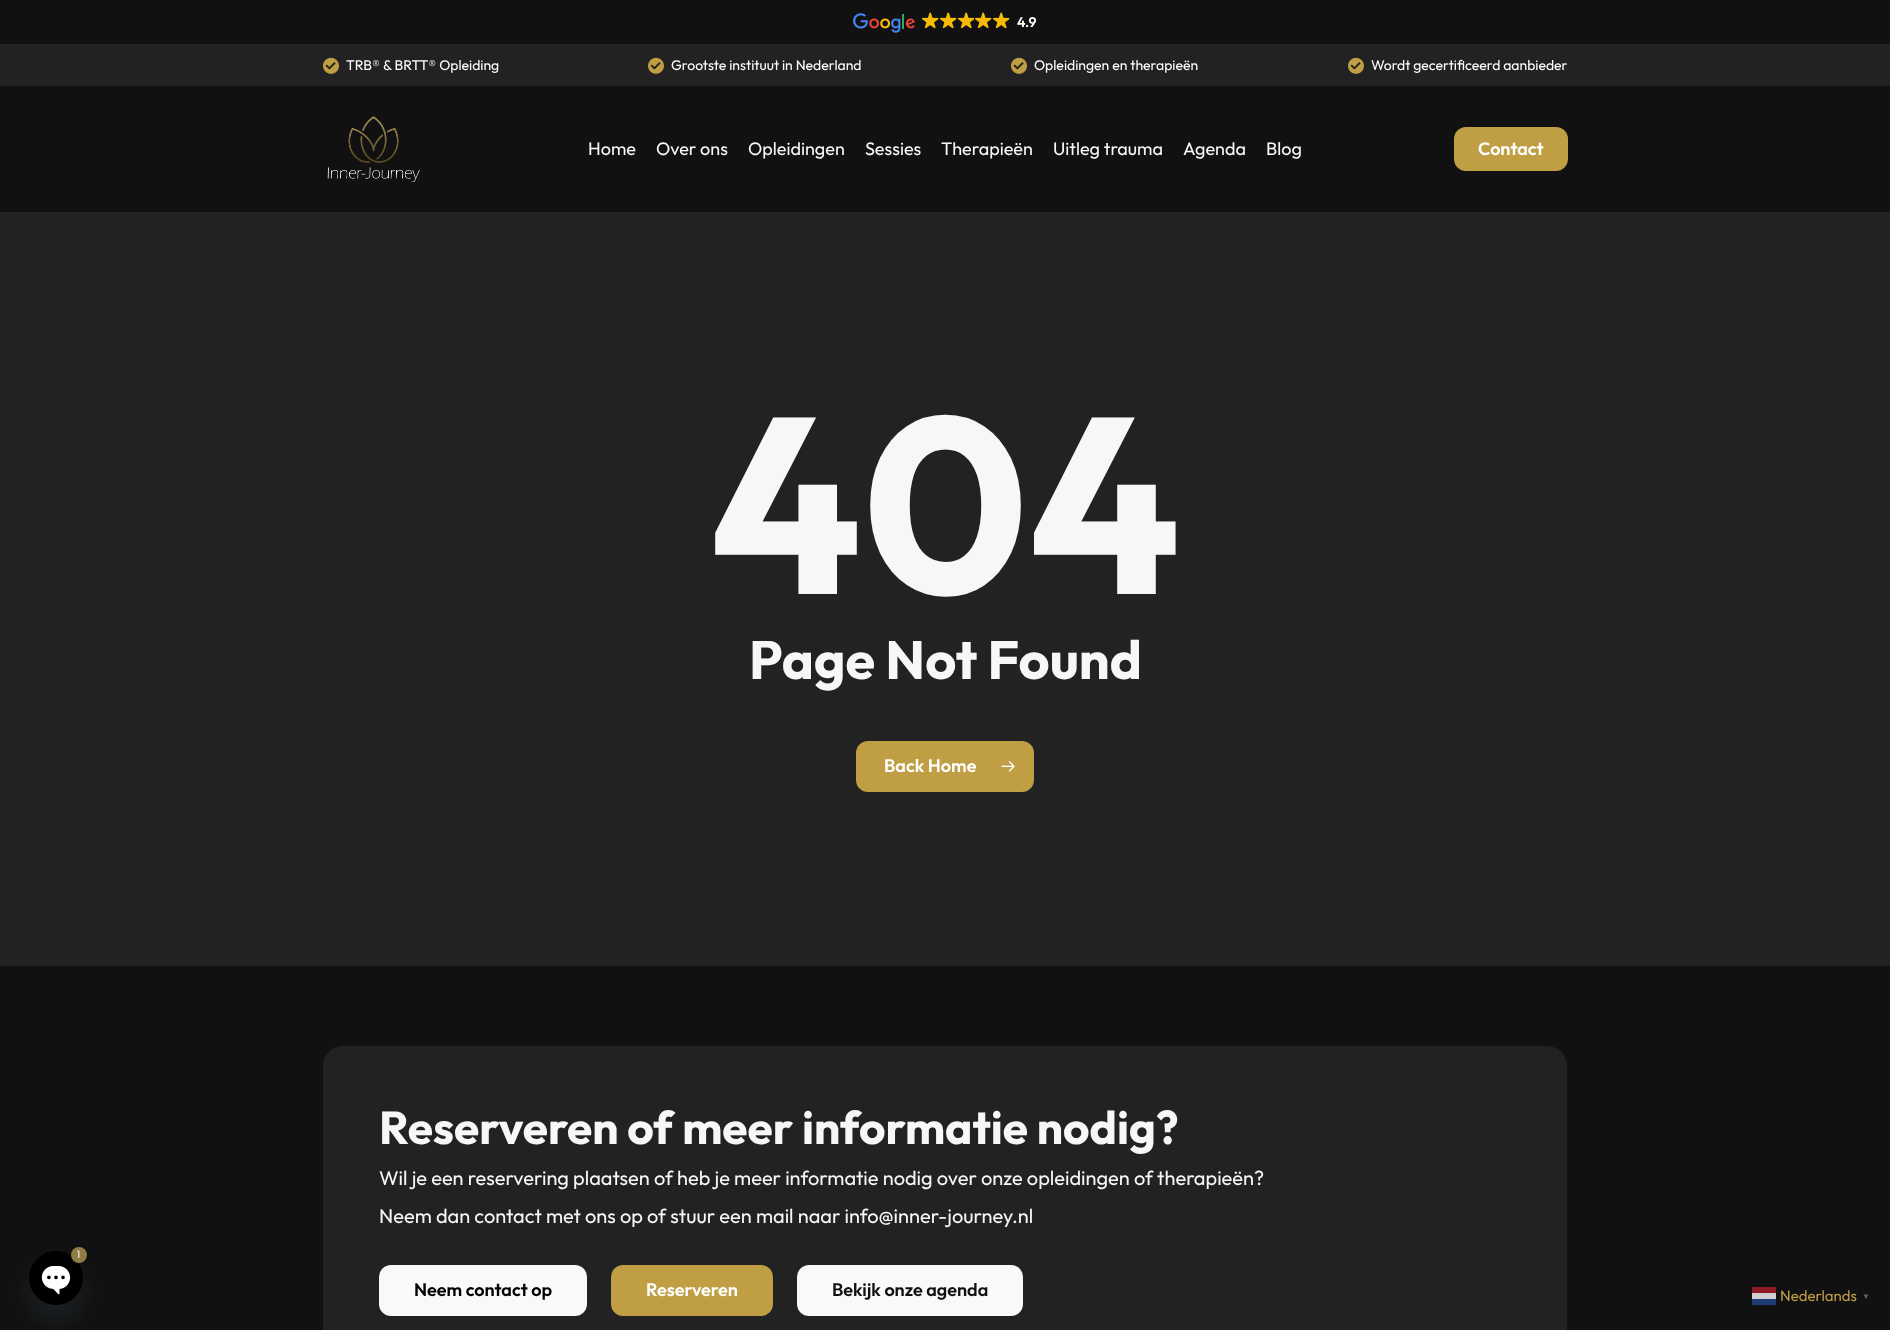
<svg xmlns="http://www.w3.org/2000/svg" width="1890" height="1330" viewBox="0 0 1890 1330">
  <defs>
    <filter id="blur1" x="-50%" y="-200%" width="200%" height="500%"><feGaussianBlur stdDeviation="12"/></filter>
  </defs>
  <rect width="100%" height="100%" fill="#222222"/>
  <rect x="0" y="966" width="1890" height="364" fill="#111111"/>
  <rect x="29" y="1267" width="54" height="54" rx="27" fill="#49687e" fill-opacity="0.16" filter="url(#blur1)"/>
  <circle cx="56" cy="1278" r="27" fill="#000000"/>
  <image x="41" y="1266" width="30" height="29" href="img1.png"/>
  <circle cx="79" cy="1255" r="8" fill="#907c45"/>
  <text x="77" y="1258" font-family="Poppins" font-size="10" fill="#ffffff">1</text>
  <rect x="0" y="0" width="1890" height="212" fill="#111111"/>
  <image x="853" y="13" width="62" height="20" href="img2.png"/>
  <image x="922" y="12" width="17" height="17" href="img3.png"/>
  <image x="940" y="12" width="17" height="17" href="img3.png"/>
  <image x="958" y="12" width="16" height="17" href="img4.png"/>
  <image x="975" y="12" width="17" height="17" href="img3.png"/>
  <image x="993" y="12" width="17" height="17" href="img3.png"/>
  <text x="1017" y="27" font-family="Outfit" font-size="14" font-weight="600" fill="#ffffff">4.9</text>
  <rect x="0" y="44" width="1890" height="42" fill="#222222"/>
  <image x="323" y="57" width="16" height="17" href="img5.png"/>
  <text x="346" y="70" font-family="Outfit" font-size="14" fill="#ffffff">TRB® &amp; BRTT® Opleiding</text>
  <image x="648" y="57" width="16" height="17" href="img5.png"/>
  <text x="671" y="70" font-family="Outfit" font-size="14" fill="#ffffff">Grootste instituut in Nederland</text>
  <image x="1011" y="57" width="16" height="17" href="img5.png"/>
  <text x="1034" y="70" font-family="Outfit" font-size="14" fill="#ffffff">Opleidingen en therapieën</text>
  <image x="1348" y="57" width="16" height="17" href="img5.png"/>
  <text x="1371" y="70" font-family="Outfit" font-size="14" fill="#ffffff">Wordt gecertificeerd aanbieder</text>
  <image x="327" y="116" width="93" height="66" href="img6.png"/>
  <text x="588" y="155" font-family="Outfit" font-size="18" fill="#f7f7f7">Home</text>
  <text x="656" y="155" font-family="Outfit" font-size="18" fill="#f7f7f7">Over ons</text>
  <text x="748" y="155" font-family="Outfit" font-size="18" fill="#f7f7f7">Opleidingen</text>
  <text x="865" y="155" font-family="Outfit" font-size="18" fill="#f7f7f7">Sessies</text>
  <text x="941" y="155" font-family="Outfit" font-size="18" fill="#f7f7f7">Therapieën</text>
  <text x="1053" y="155" font-family="Outfit" font-size="18" fill="#f7f7f7">Uitleg trauma</text>
  <text x="1183" y="155" font-family="Outfit" font-size="18" fill="#f7f7f7">Agenda</text>
  <text x="1266" y="155" font-family="Outfit" font-size="18" fill="#f7f7f7">Blog</text>
  <rect x="1454" y="127" width="114" height="44" rx="12" fill="#c09e43"/>
  <text x="1478" y="155" font-family="Outfit" font-size="18" font-weight="600" fill="#ffffff">Contact</text>
  <text x="710" y="594" font-family="Outfit" font-size="250" font-weight="bold" fill="#f7f7f7">404</text>
  <text x="749" y="679" font-family="Outfit" font-size="54" font-weight="bold" fill="#f7f7f7">Page Not Found</text>
  <rect x="856" y="741" width="178" height="51" rx="12" fill="#c09e43"/>
  <text x="884" y="772" font-family="Outfit" font-size="18" font-weight="600" fill="#ffffff">Back Home</text>
  <image x="1001" y="761" width="14" height="11" href="img7.png"/>
  <rect x="323" y="1046" width="1244" height="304" rx="20" fill="#222222"/>
  <text x="379" y="1144" font-family="Outfit" font-size="46" font-weight="bold" fill="#f7f7f7">Reserveren of meer informatie nodig?</text>
  <text x="379" y="1185" font-family="Outfit" font-size="20" fill="#f7f7f7">Wil je een reservering plaatsen of heb je meer informatie nodig over onze opleidingen of therapieën?</text>
  <text x="379" y="1223" font-family="Outfit" font-size="20" fill="#f7f7f7">Neem dan contact met ons op of stuur een mail naar info@inner-journey.nl</text>
  <rect x="379" y="1265" width="208" height="51" rx="12" fill="#f9f9f9"/>
  <text x="414" y="1296" font-family="Outfit" font-size="18" font-weight="600" fill="#000000">Neem contact op</text>
  <rect x="611" y="1265" width="162" height="51" rx="12" fill="#c09e43"/>
  <text x="646" y="1296" font-family="Outfit" font-size="18" font-weight="600" fill="#ffffff">Reserveren</text>
  <rect x="797" y="1265" width="226" height="51" rx="12" fill="#f9f9f9"/>
  <text x="832" y="1296" font-family="Outfit" font-size="18" font-weight="600" fill="#111111">Bekijk onze agenda</text>
  <text x="1780" y="1301" font-family="Outfit" font-size="15" fill="#c09e43">Nederlands</text>
  <rect x="1752" y="1293" width="24" height="6" fill="#cfcfcf"/>
  <rect x="1752" y="1299" width="24" height="6" fill="#1e3b73"/>
  <rect x="1752" y="1287" width="24" height="6" fill="#8f1a23"/>
  <text x="1862" y="1299" font-family="Liberation Serif" font-size="8" font-weight="bold" fill="#666666">▼</text>
</svg>
